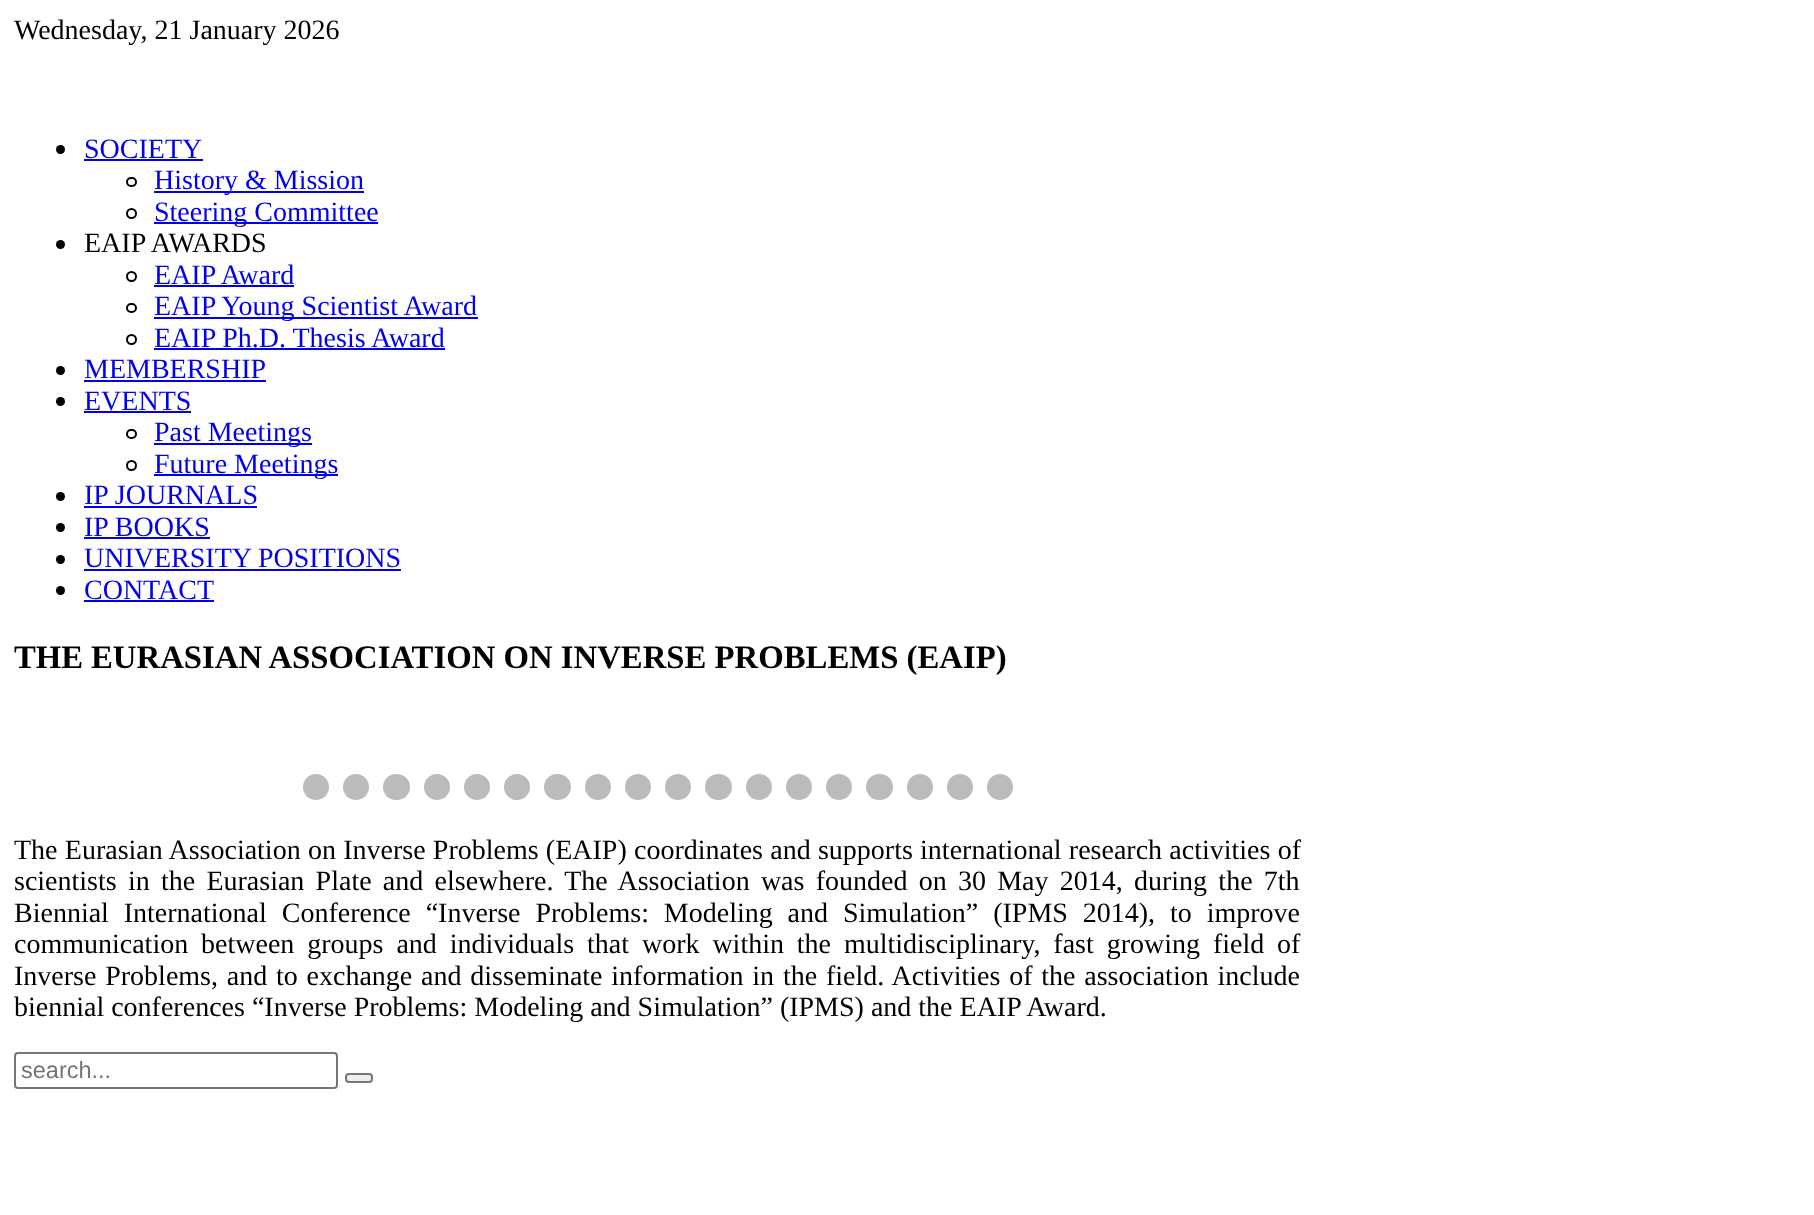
<svg xmlns="http://www.w3.org/2000/svg" width="1814" height="1215" viewBox="0 0 1814 1215">
  <rect width="100%" height="100%" fill="#ffffff"/>
  <text x="14" y="39" font-family="Liberation Serif" font-size="28" fill="#000000">Wednesday, 21 January 2026</text>
  <circle cx="60.5" cy="149.5" r="4.5" fill="#000000"/>
  <text x="84" y="158" font-family="Liberation Serif" font-size="28" fill="#0000ee">SOCIETY</text>
  <rect x="84" y="159" width="119" height="2" fill="#0000ee"/>
  <rect x="127" y="178" width="9" height="8" rx="4" fill="none" stroke="#000000" stroke-width="2"/>
  <rect x="154" y="191" width="210" height="2" fill="#0000ee"/>
  <text x="154" y="189" font-family="Liberation Serif" font-size="28" fill="#0000ee">History &amp; Mission</text>
  <circle cx="131.5" cy="213.5" r="4.5" fill="none" stroke="#000000" stroke-width="2"/>
  <rect x="154" y="222" width="224" height="2" fill="#0000ee"/>
  <text x="154" y="221" font-family="Liberation Serif" font-size="28" fill="#0000ee">Steering Committee</text>
  <circle cx="60.5" cy="244.5" r="4.5" fill="#000000"/>
  <text x="84" y="252" font-family="Liberation Serif" font-size="28" fill="#000000">EAIP AWARDS</text>
  <circle cx="131.5" cy="276.5" r="4.5" fill="none" stroke="#000000" stroke-width="2"/>
  <text x="154" y="284" font-family="Liberation Serif" font-size="28" fill="#0000ee">EAIP Award</text>
  <rect x="154" y="285" width="140" height="2" fill="#0000ee"/>
  <rect x="127" y="304" width="9" height="8" rx="4" fill="none" stroke="#000000" stroke-width="2"/>
  <rect x="154" y="317" width="324" height="2" fill="#0000ee"/>
  <text x="154" y="315" font-family="Liberation Serif" font-size="28" fill="#0000ee">EAIP Young Scientist Award</text>
  <circle cx="131.5" cy="339.5" r="4.5" fill="none" stroke="#000000" stroke-width="2"/>
  <text x="154" y="347" font-family="Liberation Serif" font-size="28" fill="#0000ee">EAIP Ph.D. Thesis Award</text>
  <rect x="154" y="348" width="291" height="2" fill="#0000ee"/>
  <circle cx="60.5" cy="370.5" r="4.5" fill="#000000"/>
  <text x="84" y="378" font-family="Liberation Serif" font-size="28" fill="#0000ee">MEMBERSHIP</text>
  <rect x="84" y="380" width="182" height="2" fill="#0000ee"/>
  <circle cx="60.5" cy="401.5" r="4.5" fill="#000000"/>
  <text x="84" y="410" font-family="Liberation Serif" font-size="28" fill="#0000ee">EVENTS</text>
  <rect x="84" y="411" width="107" height="2" fill="#0000ee"/>
  <rect x="127" y="430" width="9" height="8" rx="4" fill="none" stroke="#000000" stroke-width="2"/>
  <rect x="154" y="443" width="158" height="2" fill="#0000ee"/>
  <text x="154" y="441" font-family="Liberation Serif" font-size="28" fill="#0000ee">Past Meetings</text>
  <circle cx="131.5" cy="465.5" r="4.5" fill="none" stroke="#000000" stroke-width="2"/>
  <rect x="154" y="474" width="184" height="2" fill="#0000ee"/>
  <text x="154" y="473" font-family="Liberation Serif" font-size="28" fill="#0000ee">Future Meetings</text>
  <circle cx="60.5" cy="496.5" r="4.5" fill="#000000"/>
  <text x="84" y="504" font-family="Liberation Serif" font-size="28" fill="#0000ee">IP JOURNALS</text>
  <rect x="84" y="506" width="173" height="2" fill="#0000ee"/>
  <circle cx="60.5" cy="527.5" r="4.5" fill="#000000"/>
  <text x="84" y="536" font-family="Liberation Serif" font-size="28" fill="#0000ee">IP BOOKS</text>
  <rect x="84" y="537" width="126" height="2" fill="#0000ee"/>
  <circle cx="60.5" cy="559.5" r="4.5" fill="#000000"/>
  <text x="84" y="567" font-family="Liberation Serif" font-size="28" fill="#0000ee">UNIVERSITY POSITIONS</text>
  <rect x="84" y="569" width="317" height="2" fill="#0000ee"/>
  <circle cx="60.5" cy="590.5" r="4.5" fill="#000000"/>
  <text x="84" y="599" font-family="Liberation Serif" font-size="28" fill="#0000ee">CONTACT</text>
  <rect x="84" y="600" width="130" height="2" fill="#0000ee"/>
  <text x="14" y="668" font-family="Liberation Serif" font-size="32.75" font-weight="bold" fill="#000000">THE</text>
  <text x="91" y="668" font-family="Liberation Serif" font-size="32.75" font-weight="bold" fill="#000000">EURASIAN ASSOCIATION ON INVERSE PROBLEMS (EAIP)</text>
  <circle cx="316" cy="787" r="13" fill="#bbbbbb"/>
  <circle cx="356" cy="787" r="13" fill="#bbbbbb"/>
  <rect x="383" y="774" width="27" height="26" rx="13" fill="#bbbbbb"/>
  <circle cx="437" cy="787" r="13" fill="#bbbbbb"/>
  <circle cx="477" cy="787" r="13" fill="#bbbbbb"/>
  <circle cx="517" cy="787" r="13" fill="#bbbbbb"/>
  <rect x="544" y="774" width="27" height="26" rx="13" fill="#bbbbbb"/>
  <circle cx="598" cy="787" r="13" fill="#bbbbbb"/>
  <circle cx="638" cy="787" r="13" fill="#bbbbbb"/>
  <circle cx="678" cy="787" r="13" fill="#bbbbbb"/>
  <rect x="705" y="774" width="27" height="26" rx="13" fill="#bbbbbb"/>
  <circle cx="759" cy="787" r="13" fill="#bbbbbb"/>
  <circle cx="799" cy="787" r="13" fill="#bbbbbb"/>
  <circle cx="839" cy="787" r="13" fill="#bbbbbb"/>
  <rect x="866" y="774" width="27" height="26" rx="13" fill="#bbbbbb"/>
  <circle cx="920" cy="787" r="13" fill="#bbbbbb"/>
  <circle cx="960" cy="787" r="13" fill="#bbbbbb"/>
  <circle cx="1000" cy="787" r="13" fill="#bbbbbb"/>
  <text x="14" y="859" word-spacing="0.25" font-family="Liberation Serif" font-size="28" fill="#000000">The Eurasian Association on Inverse Problems (EAIP) coordinates and supports international research activities of</text>
  <text x="14" y="890" word-spacing="4.25" font-family="Liberation Serif" font-size="28" fill="#000000">scientists in the Eurasian Plate and elsewhere. The Association was founded on 30 May 2014, during the 7th</text>
  <text x="14" y="922" word-spacing="7.9" font-family="Liberation Serif" font-size="28" fill="#000000">Biennial International Conference “Inverse Problems: Modeling and Simulation” (IPMS 2014), to improve</text>
  <text x="14" y="953" word-spacing="5.9" font-family="Liberation Serif" font-size="28" fill="#000000">communication between groups and individuals that work within the multidisciplinary, fast growing field of</text>
  <text x="14" y="985" word-spacing="1.8" font-family="Liberation Serif" font-size="28" fill="#000000">Inverse Problems, and to exchange and disseminate information in the field. Activities of the association include</text>
  <text x="14" y="1016" font-family="Liberation Serif" font-size="28" fill="#000000">biennial conferences “Inverse Problems: Modeling and Simulation” (IPMS) and the EAIP Award.</text>
  <rect x="15" y="1053" width="322" height="35" rx="3" fill="none" stroke="#767676" stroke-width="2"/>
  <text x="21" y="1078" font-family="Liberation Sans" font-size="23.5" fill="#757575">search...</text>
  <rect x="346" y="1074" width="26" height="8" rx="3" fill="#efefef" stroke="#767676" stroke-width="2"/>
</svg>
